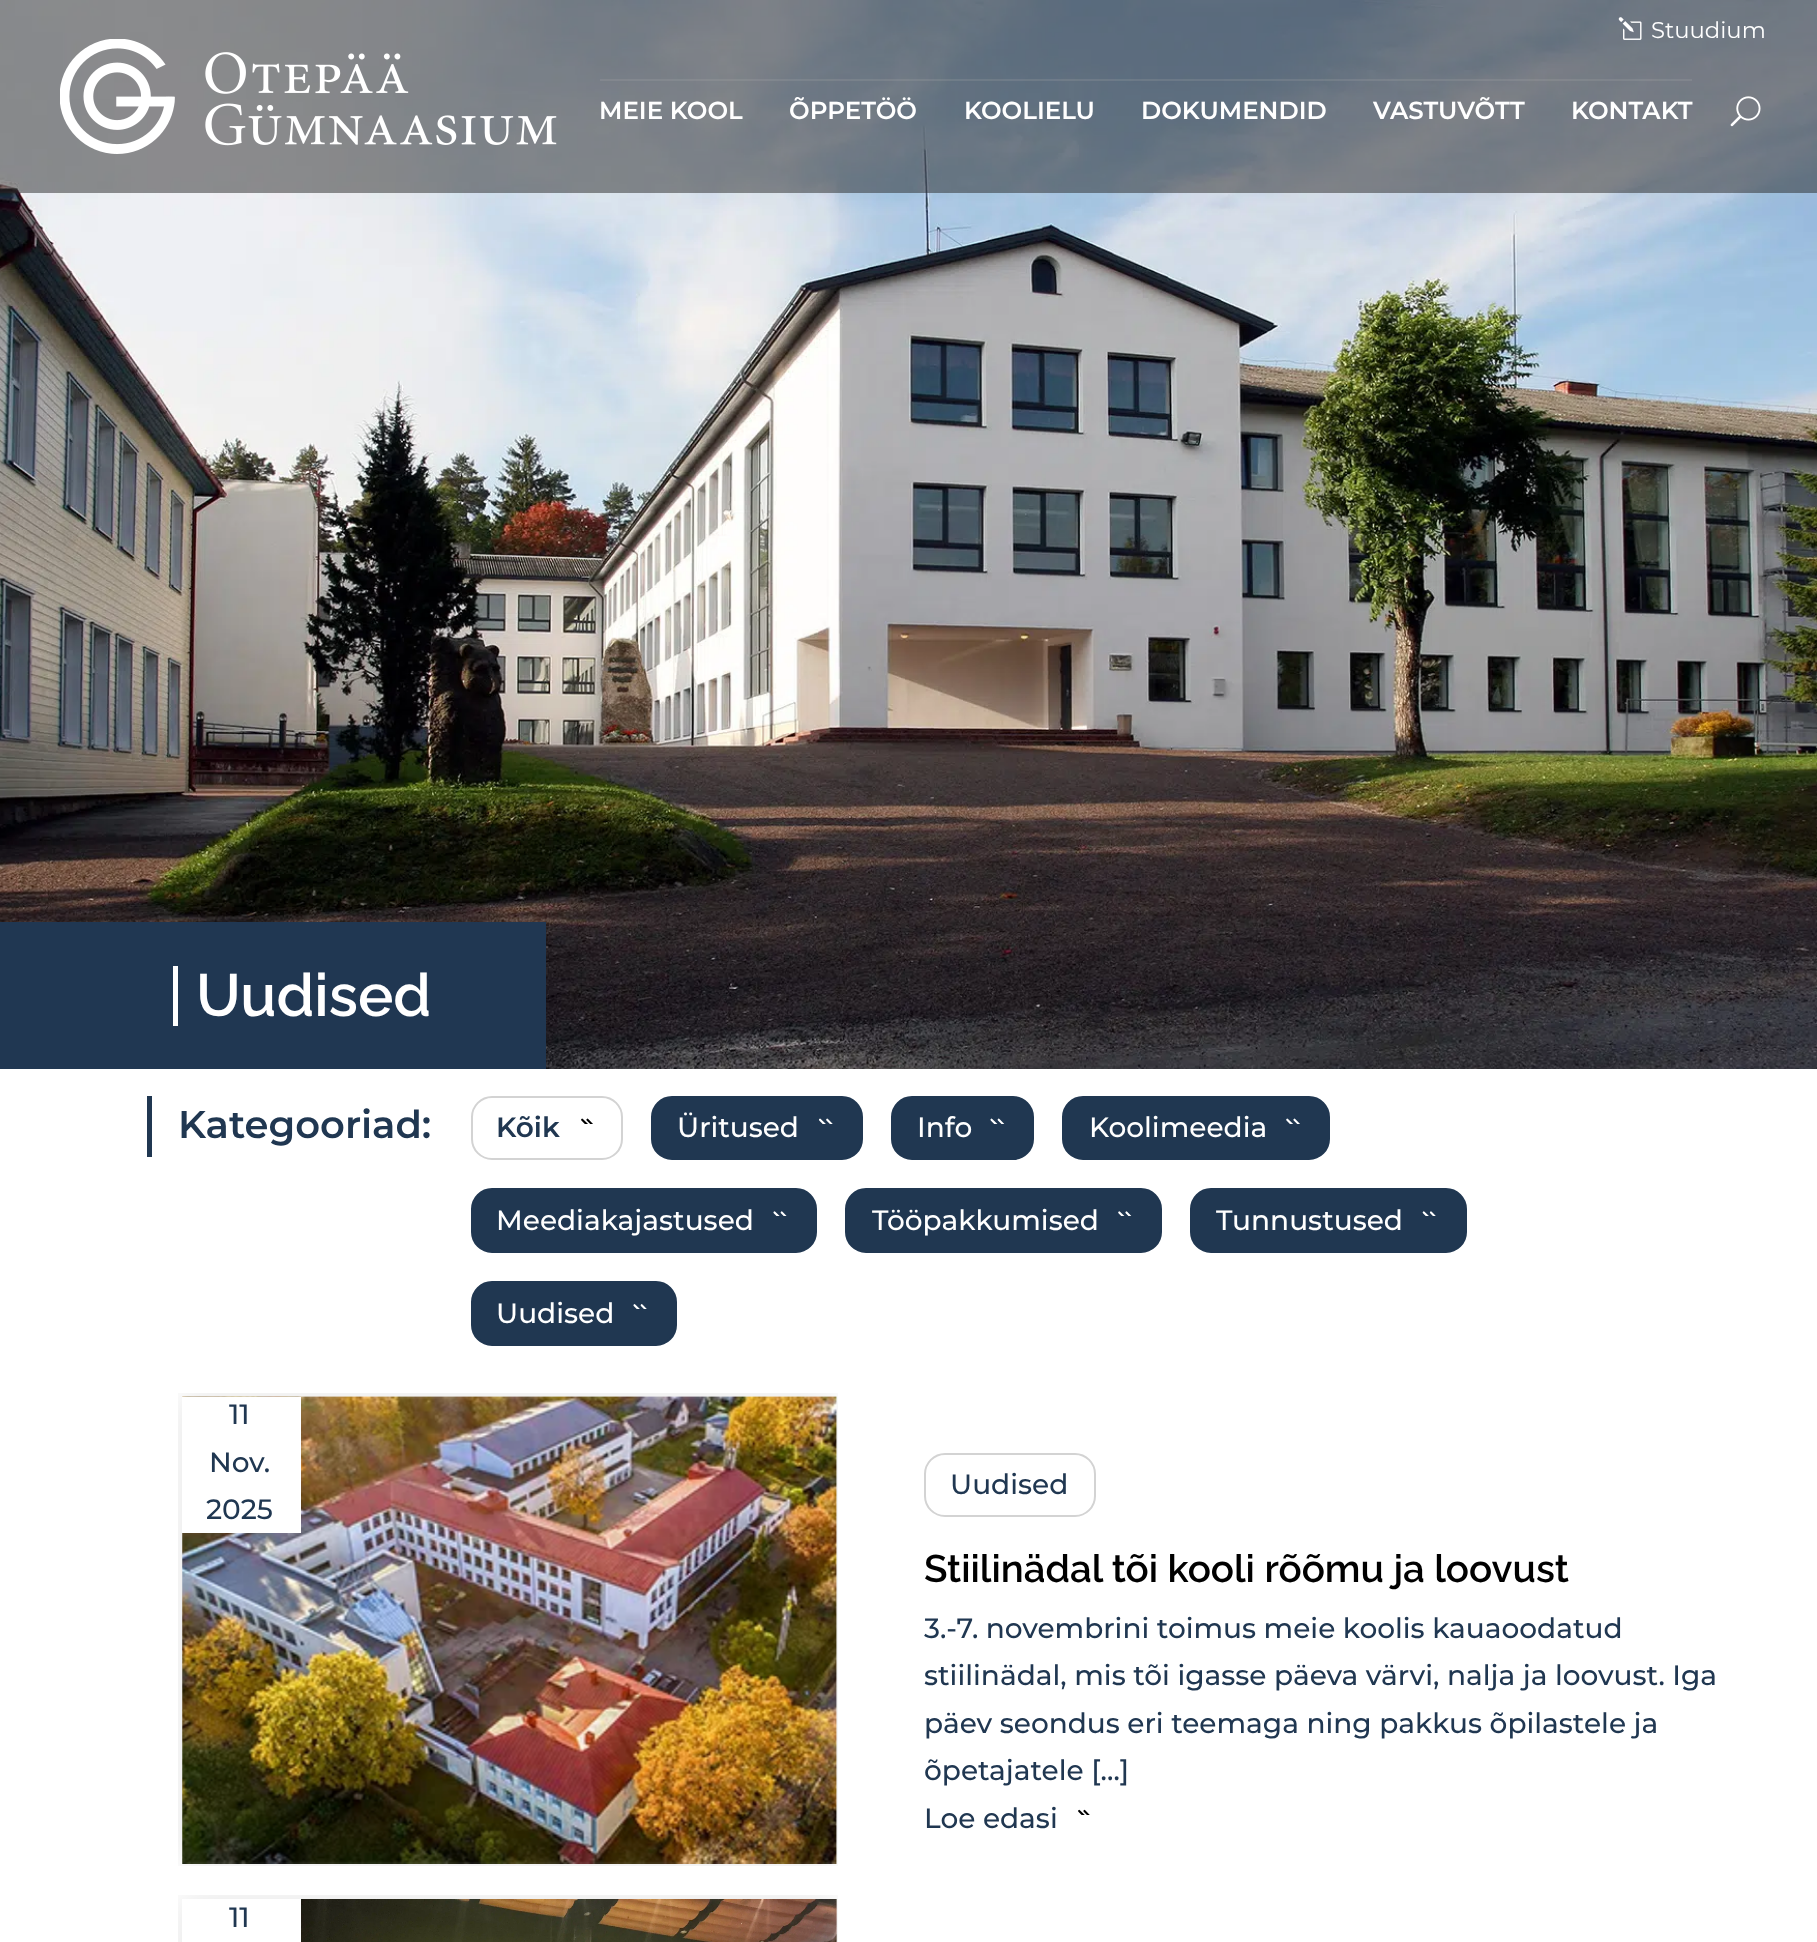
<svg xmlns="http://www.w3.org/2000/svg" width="1817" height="1942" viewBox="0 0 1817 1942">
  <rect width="100%" height="100%" fill="#ffffff"/>
  <image x="0" y="0" width="1817" height="1069" href="img4.png"/>
  <rect x="0" y="0" width="1817" height="193" fill="#252525" fill-opacity="0.5"/>
  <image x="1618" y="17" width="24" height="23" href="img1.png"/>
  <text x="1651" y="38" font-family="'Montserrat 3'" font-size="22.75" font-weight="100" fill="#ffffff">Stuudium</text>
  <image x="60" y="39" width="497" height="115" href="img2.png"/>
  <rect x="600" y="79" width="1092" height="2" fill="#afafaf" fill-opacity="0.2"/>
  <text x="599" y="119" font-family="Montserrat" font-size="24.5" font-weight="100" fill="#ffffff">MEIE KOOL</text>
  <text x="789" y="119" font-family="Montserrat" font-size="24.5" font-weight="100" fill="#ffffff">ÕPPETÖÖ</text>
  <text x="964" y="119" font-family="Montserrat" font-size="24.5" font-weight="100" fill="#ffffff">KOOLIELU</text>
  <text x="1141" y="119" font-family="Montserrat" font-size="24.5" font-weight="100" fill="#ffffff">DOKUMENDID</text>
  <text x="1373" y="119" font-family="Montserrat" font-size="24.5" font-weight="100" fill="#ffffff">VASTUVÕTT</text>
  <text x="1571" y="119" font-family="Montserrat" font-size="24.5" font-weight="100" fill="#ffffff">KONTAKT</text>
  <image x="1730" y="96" width="31" height="31" href="img3.png"/>
  <rect x="0" y="922" width="546" height="147" fill="#203752"/>
  <rect x="173" y="966" width="5" height="60" fill="#ffffff"/>
  <text x="196" y="1016" font-family="Raleway" font-size="59.5" font-weight="100" fill="#ffffff">Uudised</text>
  <rect x="147" y="1096" width="5" height="61" fill="#203751"/>
  <text x="178" y="1138" font-family="Montserrat" font-size="38.5" font-weight="100" fill="#203751">Kategooriad:</text>
  <rect x="472" y="1097" width="150" height="62" rx="20" fill="none" stroke="#d3d3d3" stroke-width="2"/>
  <text x="496" y="1137" font-family="Montserrat" font-size="28" font-weight="100" fill="#203751">Kõik</text>
  <image x="581" y="1118" width="12" height="6" href="img5.png"/>
  <rect x="652" y="1097" width="210" height="62" rx="20" fill="#203751" stroke="#203751" stroke-width="2"/>
  <text x="677" y="1137" font-family="'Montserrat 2'" font-size="28" font-weight="100" fill="#ffffff">Üritused</text>
  <image x="819" y="1118" width="14" height="6" href="img6.png"/>
  <rect x="892" y="1097" width="141" height="62" rx="20" fill="#203751" stroke="#203751" stroke-width="2"/>
  <text x="917" y="1137" font-family="'Montserrat 2'" font-size="28" font-weight="100" fill="#ffffff">Info</text>
  <image x="990" y="1118" width="15" height="6" href="img7.png"/>
  <rect x="1063" y="1097" width="266" height="62" rx="20" fill="#203751" stroke="#203751" stroke-width="2"/>
  <text x="1089" y="1137" font-family="'Montserrat 2'" font-size="28" font-weight="100" fill="#ffffff">Koolimeedia</text>
  <image x="1286" y="1118" width="14" height="6" href="img8.png"/>
  <rect x="472" y="1189" width="344" height="63" rx="20" fill="#203751" stroke="#203751" stroke-width="2"/>
  <text x="496" y="1230" font-family="'Montserrat 2'" font-size="28" font-weight="100" fill="#ffffff">Meediakajastused</text>
  <image x="773" y="1211" width="14" height="5" href="img9.png"/>
  <rect x="846" y="1189" width="315" height="63" rx="20" fill="#203751" stroke="#203751" stroke-width="2"/>
  <text x="872" y="1230" font-family="'Montserrat 2'" font-size="28" font-weight="100" fill="#ffffff">Tööpakkumised</text>
  <image x="1118" y="1211" width="14" height="5" href="img10.png"/>
  <rect x="1191" y="1189" width="275" height="63" rx="20" fill="#203751" stroke="#203751" stroke-width="2"/>
  <text x="1216" y="1230" font-family="'Montserrat 2'" font-size="28" font-weight="100" fill="#ffffff">Tunnustused</text>
  <image x="1422" y="1211" width="14" height="5" href="img11.png"/>
  <rect x="472" y="1282" width="204" height="63" rx="20" fill="#203751" stroke="#203751" stroke-width="2"/>
  <text x="496" y="1323" font-family="'Montserrat 2'" font-size="28" font-weight="100" fill="#ffffff">Uudised</text>
  <image x="633" y="1304" width="14" height="5" href="img12.png"/>
  <image x="178" y="1393" width="660" height="473" href="img13.png"/>
  <rect x="182" y="1397" width="119" height="136" fill="#ffffff"/>
  <text x="229" y="1424" font-family="'Montserrat 2'" font-size="28" font-weight="100" fill="#203751">11</text>
  <text x="209" y="1472" font-family="'Montserrat 2'" font-size="28" font-weight="100" fill="#203751">Nov.</text>
  <text x="206" y="1519" font-family="'Montserrat 2'" font-size="28" font-weight="100" fill="#203751">2025</text>
  <rect x="925" y="1454" width="170" height="62" rx="20" fill="none" stroke="#d3d3d3" stroke-width="2"/>
  <text x="950" y="1494" font-family="'Montserrat 2'" font-size="28" font-weight="100" fill="#203751">Uudised</text>
  <text x="924" y="1582" font-family="Raleway" font-size="38.5" font-weight="100" fill="#000000">Stiilinädal tõi kooli rõõmu ja loovust</text>
  <text x="924" y="1638" font-family="'Montserrat 2'" font-size="28" font-weight="100" fill="#203751">3.-7. novembrini toimus meie koolis kauaoodatud</text>
  <text x="924" y="1685" font-family="'Montserrat 2'" font-size="28" font-weight="100" fill="#203751">stiilinädal, mis tõi igasse päeva värvi, nalja ja loovust. Iga</text>
  <text x="924" y="1733" font-family="'Montserrat 2'" font-size="28" font-weight="100" fill="#203751">päev seondus eri teemaga ning pakkus õpilastele ja</text>
  <text x="924" y="1780" font-family="'Montserrat 2'" font-size="28" font-weight="100" fill="#203751">õpetajatele […]</text>
  <text x="924" y="1828" font-family="'Montserrat 2'" font-size="28" font-weight="100" fill="#203751">Loe edasi</text>
  <image x="1078" y="1809" width="12" height="6" href="img14.png"/>
  <image x="178" y="1895" width="660" height="47" href="img15.png"/>
  <rect x="182" y="1899" width="119" height="43" fill="#ffffff"/>
  <text x="229" y="1927" font-family="'Montserrat 2'" font-size="28" font-weight="100" fill="#203751">11</text>
</svg>
